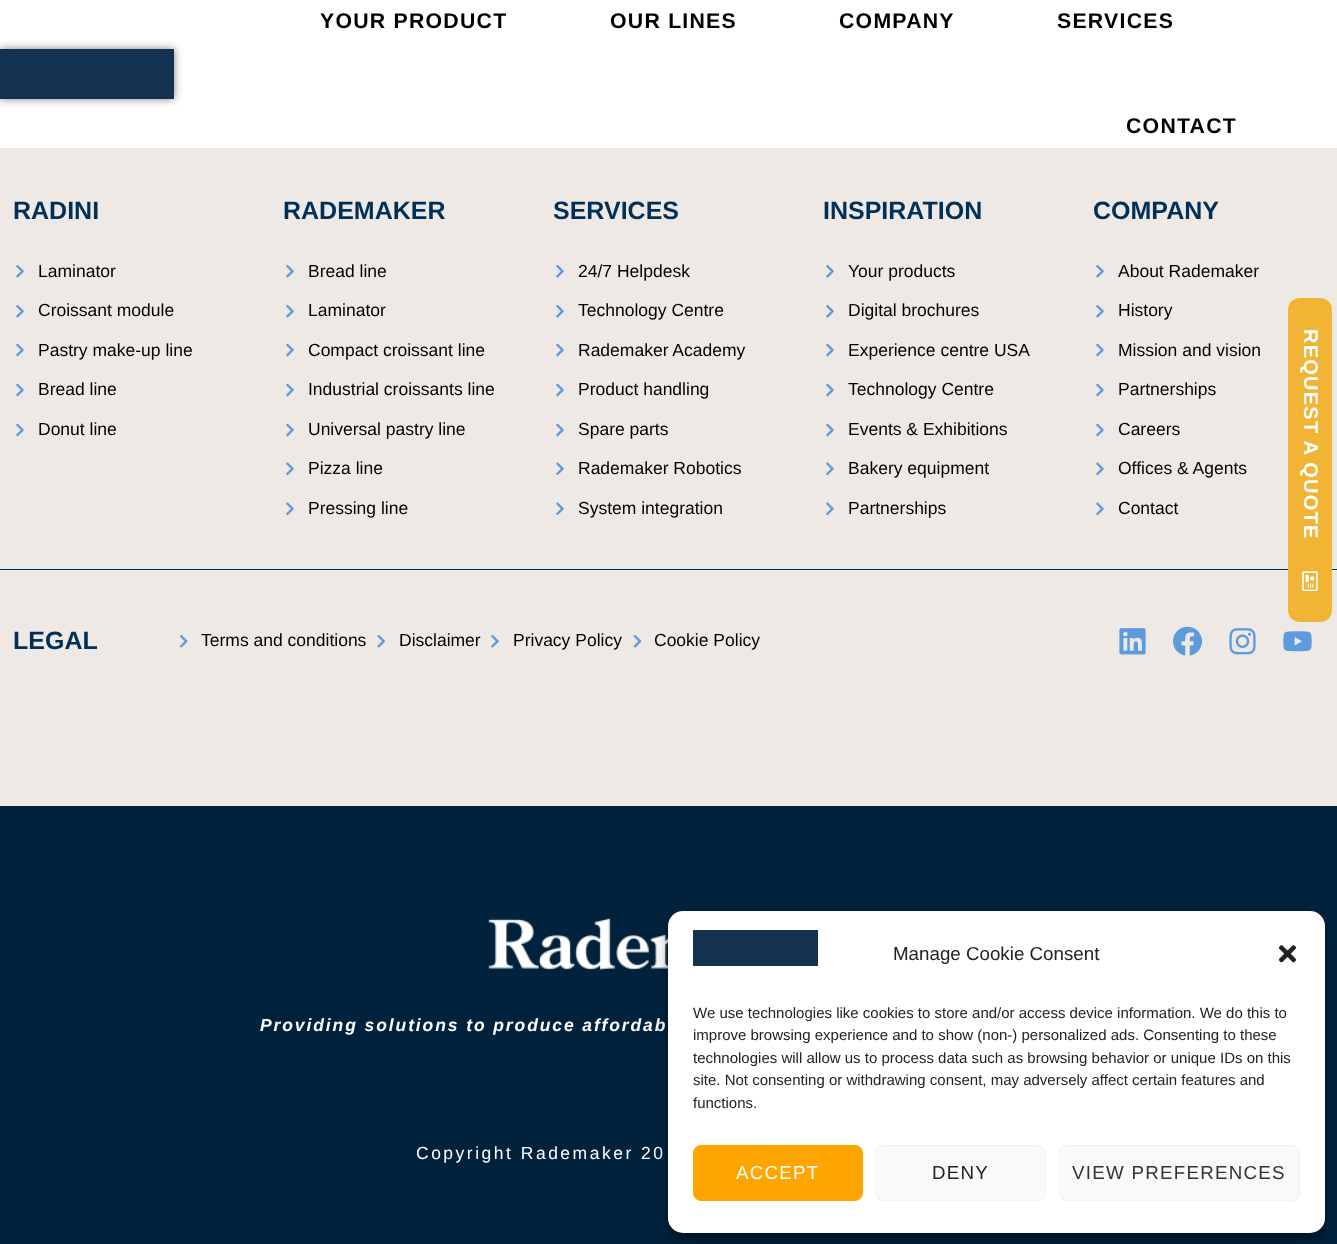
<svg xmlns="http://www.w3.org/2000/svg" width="1337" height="1244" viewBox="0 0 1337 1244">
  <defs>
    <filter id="blur1" x="-50%" y="-200%" width="200%" height="500%"><feGaussianBlur stdDeviation="4.5"/></filter>
    <clipPath id="clip1"><path d="M1320 329V539.5H1300V329Z"/></clipPath>
    <filter id="blur2" x="-50%" y="-200%" width="200%" height="500%"><feGaussianBlur stdDeviation="4"/></filter>
    <filter id="blur3" x="-50%" y="-200%" width="200%" height="500%"><feGaussianBlur stdDeviation="12.5"/></filter>
  </defs>
  <rect width="100%" height="100%" fill="#eee9e5"/>
  <rect x="0" y="0" width="1337" height="148" fill="#ffffff"/>
  <rect x="0" y="49" width="174" height="50" fill="#000000" fill-opacity="0.5" filter="url(#blur1)"/>
  <rect x="0" y="49" width="174" height="50" fill="#133250"/>
  <text x="320" y="28" font-family="Liberation Sans" font-size="21.25" font-weight="bold" letter-spacing="1.25" fill="#000000">YOUR PRODUCT</text>
  <text x="610" y="28" font-family="Liberation Sans" font-size="21.25" font-weight="bold" letter-spacing="1.25" fill="#000000">OUR LINES</text>
  <text x="839" y="28" font-family="Liberation Sans" font-size="21.25" font-weight="bold" letter-spacing="1.25" fill="#000000">COMPANY</text>
  <text x="1057" y="28" font-family="Liberation Sans" font-size="21.25" font-weight="bold" letter-spacing="1.25" fill="#000000">SERVICES</text>
  <text x="1126" y="133" font-family="Liberation Sans" font-size="21.25" font-weight="bold" letter-spacing="1.25" fill="#000000">CONTACT</text>
  <text x="13" y="219" font-family="Liberation Sans" font-size="25" font-weight="bold" fill="#003057">RADINI</text>
  <image x="16" y="264" width="8" height="14" href="img1.png"/>
  <text x="38" y="277" font-family="Liberation Sans" font-size="17.5" fill="#000000">Laminator</text>
  <image x="16" y="304" width="8" height="14" href="img1.png"/>
  <text x="38" y="316" font-family="Liberation Sans" font-size="17.5" fill="#000000">Croissant module</text>
  <image x="16" y="343" width="8" height="14" href="img2.png"/>
  <text x="38" y="356" font-family="Liberation Sans" font-size="17.5" fill="#000000">Pastry make-up line</text>
  <image x="16" y="383" width="8" height="14" href="img2.png"/>
  <text x="38" y="395" font-family="Liberation Sans" font-size="17.5" fill="#000000">Bread line</text>
  <image x="16" y="423" width="8" height="14" href="img2.png"/>
  <text x="38" y="435" font-family="Liberation Sans" font-size="17.5" fill="#000000">Donut line</text>
  <text x="283" y="219" font-family="Liberation Sans" font-size="25" font-weight="bold" fill="#003057">RADEMAKER</text>
  <image x="286" y="264" width="8" height="14" href="img1.png"/>
  <text x="308" y="277" font-family="Liberation Sans" font-size="17.5" fill="#000000">Bread line</text>
  <image x="286" y="304" width="8" height="14" href="img1.png"/>
  <text x="308" y="316" font-family="Liberation Sans" font-size="17.5" fill="#000000">Laminator</text>
  <image x="286" y="343" width="8" height="14" href="img2.png"/>
  <text x="308" y="356" font-family="Liberation Sans" font-size="17.5" fill="#000000">Compact croissant line</text>
  <image x="286" y="383" width="8" height="14" href="img2.png"/>
  <text x="308" y="395" font-family="Liberation Sans" font-size="17.5" fill="#000000">Industrial croissants line</text>
  <image x="286" y="423" width="8" height="14" href="img2.png"/>
  <text x="308" y="435" font-family="Liberation Sans" font-size="17.5" fill="#000000">Universal pastry line</text>
  <image x="286" y="462" width="8" height="14" href="img3.png"/>
  <text x="308" y="474" font-family="Liberation Sans" font-size="17.5" fill="#000000">Pizza line</text>
  <image x="286" y="502" width="8" height="14" href="img3.png"/>
  <text x="308" y="514" font-family="Liberation Sans" font-size="17.5" fill="#000000">Pressing line</text>
  <text x="553" y="219" font-family="Liberation Sans" font-size="25" font-weight="bold" fill="#003057">SERVICES</text>
  <image x="556" y="264" width="8" height="14" href="img1.png"/>
  <text x="578" y="277" font-family="Liberation Sans" font-size="17.5" fill="#000000">24/7 Helpdesk</text>
  <image x="556" y="304" width="8" height="14" href="img1.png"/>
  <text x="578" y="316" font-family="Liberation Sans" font-size="17.5" fill="#000000">Technology Centre</text>
  <image x="556" y="343" width="8" height="14" href="img2.png"/>
  <text x="578" y="356" font-family="Liberation Sans" font-size="17.5" fill="#000000">Rademaker Academy</text>
  <image x="556" y="383" width="8" height="14" href="img2.png"/>
  <text x="578" y="395" font-family="Liberation Sans" font-size="17.5" fill="#000000">Product handling</text>
  <image x="556" y="423" width="8" height="14" href="img2.png"/>
  <text x="578" y="435" font-family="Liberation Sans" font-size="17.5" fill="#000000">Spare parts</text>
  <image x="556" y="462" width="8" height="14" href="img3.png"/>
  <text x="578" y="474" font-family="Liberation Sans" font-size="17.5" fill="#000000">Rademaker Robotics</text>
  <image x="556" y="502" width="8" height="14" href="img3.png"/>
  <text x="578" y="514" font-family="Liberation Sans" font-size="17.5" fill="#000000">System integration</text>
  <text x="823" y="219" font-family="Liberation Sans" font-size="25" font-weight="bold" fill="#003057">INSPIRATION</text>
  <image x="826" y="264" width="8" height="14" href="img1.png"/>
  <text x="848" y="277" font-family="Liberation Sans" font-size="17.5" fill="#000000">Your products</text>
  <image x="826" y="304" width="8" height="14" href="img1.png"/>
  <text x="848" y="316" font-family="Liberation Sans" font-size="17.5" fill="#000000">Digital brochures</text>
  <image x="826" y="343" width="8" height="14" href="img2.png"/>
  <text x="848" y="356" font-family="Liberation Sans" font-size="17.5" fill="#000000">Experience centre USA</text>
  <image x="826" y="383" width="8" height="14" href="img2.png"/>
  <text x="848" y="395" font-family="Liberation Sans" font-size="17.5" fill="#000000">Technology Centre</text>
  <image x="826" y="423" width="8" height="14" href="img2.png"/>
  <text x="848" y="435" font-family="Liberation Sans" font-size="17.5" fill="#000000">Events &amp; Exhibitions</text>
  <image x="826" y="462" width="8" height="14" href="img3.png"/>
  <text x="848" y="474" font-family="Liberation Sans" font-size="17.5" fill="#000000">Bakery equipment</text>
  <image x="826" y="502" width="8" height="14" href="img3.png"/>
  <text x="848" y="514" font-family="Liberation Sans" font-size="17.5" fill="#000000">Partnerships</text>
  <text x="1093" y="219" font-family="Liberation Sans" font-size="25" font-weight="bold" fill="#003057">COMPANY</text>
  <image x="1096" y="264" width="8" height="14" href="img1.png"/>
  <text x="1118" y="277" font-family="Liberation Sans" font-size="17.5" fill="#000000">About Rademaker</text>
  <image x="1096" y="304" width="8" height="14" href="img1.png"/>
  <text x="1118" y="316" font-family="Liberation Sans" font-size="17.5" fill="#000000">History</text>
  <image x="1096" y="343" width="8" height="14" href="img2.png"/>
  <text x="1118" y="356" font-family="Liberation Sans" font-size="17.5" fill="#000000">Mission and vision</text>
  <image x="1096" y="383" width="8" height="14" href="img2.png"/>
  <text x="1118" y="395" font-family="Liberation Sans" font-size="17.5" fill="#000000">Partnerships</text>
  <image x="1096" y="423" width="8" height="14" href="img2.png"/>
  <text x="1118" y="435" font-family="Liberation Sans" font-size="17.5" fill="#000000">Careers</text>
  <image x="1096" y="462" width="8" height="14" href="img3.png"/>
  <text x="1118" y="474" font-family="Liberation Sans" font-size="17.5" fill="#000000">Offices &amp; Agents</text>
  <image x="1096" y="502" width="8" height="14" href="img3.png"/>
  <text x="1118" y="514" font-family="Liberation Sans" font-size="17.5" fill="#000000">Contact</text>
  <rect x="0" y="569" width="1337" height="1" fill="#003057"/>
  <text x="13" y="649" font-family="Liberation Sans" font-size="25" font-weight="bold" fill="#003057">LEGAL</text>
  <image x="179" y="634" width="9" height="14" href="img4.png"/>
  <text x="201" y="646" font-family="Liberation Sans" font-size="17.5" fill="#000000">Terms and conditions</text>
  <image x="377" y="634" width="9" height="14" href="img5.png"/>
  <text x="399" y="646" font-family="Liberation Sans" font-size="17.5" fill="#000000">Disclaimer</text>
  <image x="491" y="634" width="8" height="14" href="img1.png"/>
  <text x="513" y="646" font-family="Liberation Sans" font-size="17.5" fill="#000000">Privacy Policy</text>
  <image x="633" y="635" width="9" height="13" href="img6.png"/>
  <text x="654" y="646" font-family="Liberation Sans" font-size="17.5" fill="#000000">Cookie Policy</text>
  <image x="1119" y="628" width="27" height="27" href="img7.png"/>
  <image x="1173" y="626" width="29" height="30" href="img8.png"/>
  <image x="1229" y="628" width="27" height="27" href="img9.png"/>
  <image x="1283" y="631" width="29" height="21" href="img10.png"/>
  <rect x="0" y="806" width="1337" height="438" fill="#00223d"/>
  <image x="488" y="918" width="180" height="53" href="img11.png"/>
  <text x="260" y="1031" font-family="Liberation Sans" font-size="17.5" font-weight="bold" font-style="italic" letter-spacing="1.9" fill="#ffffff">Providing solutions to produce affordab</text>
  <text x="416" y="1159" font-family="Liberation Sans" font-size="17.5" letter-spacing="2.5" fill="#ffffff">Copyright Rademaker 20</text>
  <path d="M1332 310V610C1332 617 1327 622 1320 622H1300C1293 622 1288 617 1288 610V310C1288 303 1293 298 1300 298H1320C1327 298 1332 303 1332 310Z" fill="#f1b434"/>
  <g clip-path="url(#clip1)">
    <text x="1304" y="329" transform="rotate(90 1304 329)" font-family="Liberation Sans" font-size="20" font-weight="bold" letter-spacing="1.25" fill="#ffffff">REQUEST A QUOTE</text>
  </g>
  <image x="1302" y="571" width="16" height="20" href="img12.png"/>
  <rect x="668" y="919" width="657" height="321" rx="15" fill="#000000" fill-opacity="0.23" filter="url(#blur2)"/>
  <rect x="668" y="924" width="657" height="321" rx="15" fill="#000000" fill-opacity="0.19" filter="url(#blur3)"/>
  <rect x="668" y="911" width="657" height="322" rx="15" fill="#ffffff"/>
  <rect x="693" y="930" width="125" height="36" fill="#133250"/>
  <text x="893" y="960" font-family="Liberation Sans" font-size="18.75" fill="#222222">Manage Cookie Consent</text>
  <image x="1278" y="945" width="19" height="18" href="img13.png"/>
  <text x="693" y="1018" font-family="Liberation Sans" font-size="15" fill="#222222">We use technologies like cookies to store and/or access device information. We do this to</text>
  <text x="693" y="1040" font-family="Liberation Sans" font-size="15" fill="#222222">improve browsing experience and to show (non-) personalized ads. Consenting to these</text>
  <text x="693" y="1063" font-family="Liberation Sans" font-size="15" fill="#222222">technologies will allow us to process data such as browsing behavior or unique IDs on this</text>
  <text x="693" y="1085" font-family="Liberation Sans" font-size="15" fill="#222222">site. Not consenting or withdrawing consent, may adversely affect certain features and</text>
  <text x="693" y="1108" font-family="Liberation Sans" font-size="15" fill="#222222">functions.</text>
  <rect x="693.5" y="1145.5" width="169" height="55" rx="7.5" fill="#ffa500" stroke="#ffa500"/>
  <text x="736" y="1179" font-family="Liberation Sans" font-size="18.75" letter-spacing="1.25" fill="#ffffff">ACCEPT</text>
  <rect x="875.5" y="1145.5" width="170" height="55" rx="7.5" fill="#f9f9f9" stroke="#f2f2f2"/>
  <text x="932" y="1179" font-family="Liberation Sans" font-size="18.75" letter-spacing="1.25" fill="#222222">DENY</text>
  <rect x="1059.5" y="1145.5" width="240" height="55" rx="7.5" fill="#f9f9f9" stroke="#f2f2f2"/>
  <text x="1072" y="1179" font-family="Liberation Sans" font-size="18.75" letter-spacing="1.25" fill="#333333">VIEW PREFERENCES</text>
</svg>
